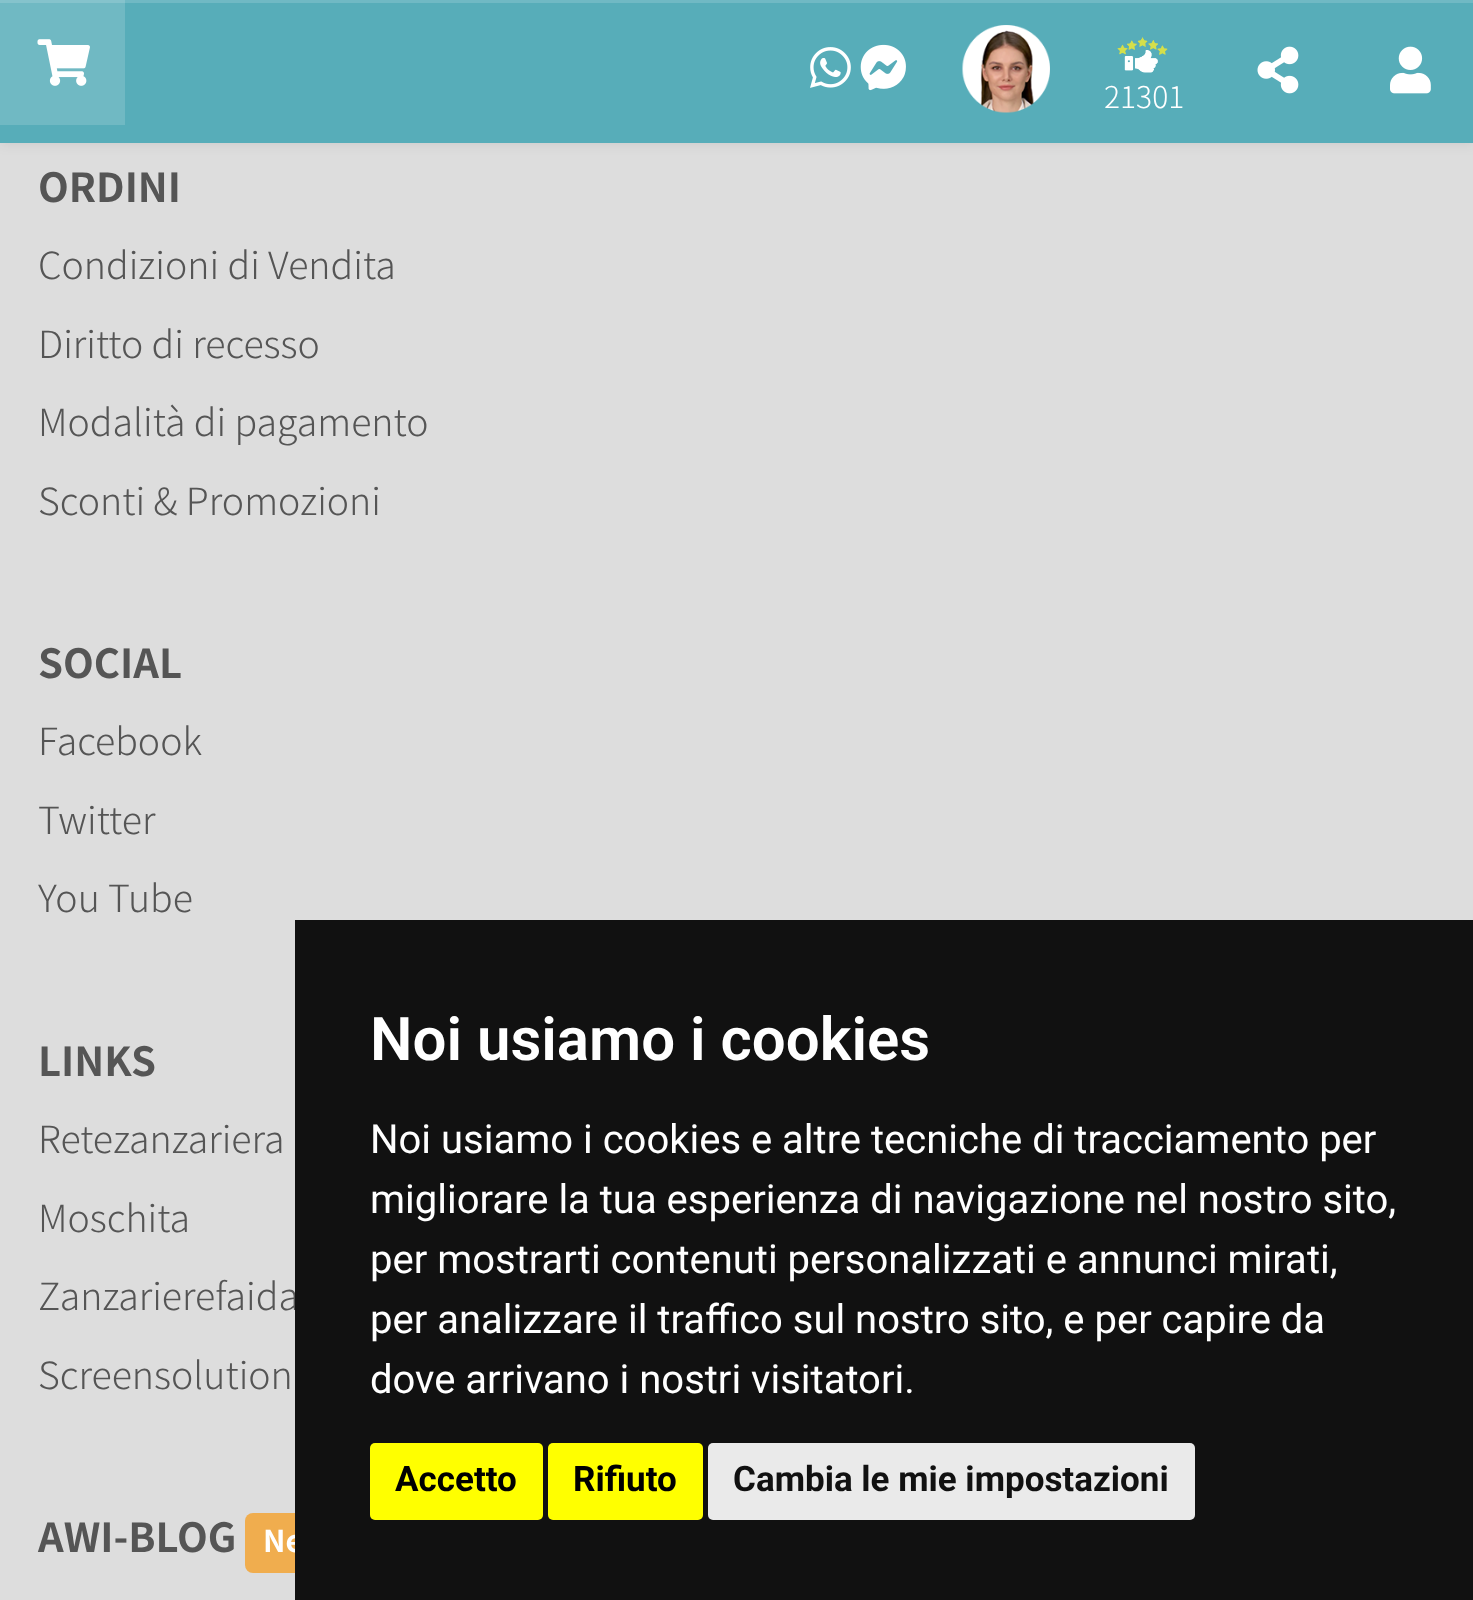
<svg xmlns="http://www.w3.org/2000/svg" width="1473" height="1600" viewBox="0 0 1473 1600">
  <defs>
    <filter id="blur1" x="-50%" y="-200%" width="200%" height="500%"><feGaussianBlur stdDeviation="6"/></filter>
  </defs>
  <rect width="100%" height="100%" fill="#dddddd"/>
  <rect x="0" y="3" width="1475" height="142" fill="#000000" fill-opacity="0.07" filter="url(#blur1)"/>
  <rect x="0" y="3" width="1473" height="140" fill="#57adb9"/>
  <rect x="0" y="0" width="1473" height="3" fill="#70b9c4"/>
  <rect x="0" y="0" width="125" height="125" fill="#ffffff" fill-opacity="0.15"/>
  <image x="37" y="39" width="53" height="47" href="img1.png"/>
  <image x="1390" y="46" width="41" height="48" href="img2.png"/>
  <image x="810" y="47" width="41" height="41" href="img3.png"/>
  <image x="860" y="44" width="46" height="47" href="img4.png"/>
  <image x="962" y="25" width="88" height="88" href="img5.png"/>
  <image x="1257" y="46" width="42" height="48" href="img6.png"/>
  <image x="1117" y="37" width="51" height="36" href="img7.png"/>
  <text x="1104" y="108" font-family="Noto Sans JP" font-size="30" font-weight="300" fill="#ffffff">21301</text>
  <text x="38" y="202" font-family="Noto Sans JP" font-size="40" font-weight="bold" fill="#555555">ORDINI</text>
  <text x="38" y="279" font-family="Noto Sans JP" font-size="37.5" font-weight="300" fill="#555555">Condizioni di Vendita</text>
  <text x="38" y="358" font-family="Noto Sans JP" font-size="37.5" font-weight="300" fill="#555555">Diritto di recesso</text>
  <text x="38" y="436" font-family="Noto Sans JP" font-size="37.5" font-weight="300" fill="#555555">Modalità di pagamento</text>
  <text x="38" y="515" font-family="Noto Sans JP" font-size="37.5" font-weight="300" fill="#555555">Sconti &amp; Promozioni</text>
  <text x="38" y="678" font-family="Noto Sans JP" font-size="40" font-weight="bold" fill="#555555">SOCIAL</text>
  <text x="38" y="755" font-family="Noto Sans JP" font-size="37.5" font-weight="300" fill="#555555">Facebook</text>
  <text x="38" y="834" font-family="Noto Sans JP" font-size="37.5" font-weight="300" fill="#555555">Twitter</text>
  <text x="38" y="912" font-family="Noto Sans JP" font-size="37.5" font-weight="300" fill="#555555">You Tube</text>
  <text x="38" y="1076" font-family="Noto Sans JP" font-size="40" font-weight="bold" fill="#555555">LINKS</text>
  <text x="38" y="1153" font-family="Noto Sans JP" font-size="37.5" font-weight="300" fill="#555555">Retezanzariera</text>
  <text x="38" y="1232" font-family="Noto Sans JP" font-size="37.5" font-weight="300" fill="#555555">Moschita</text>
  <text x="38" y="1310" font-family="Noto Sans JP" font-size="37.5" font-weight="300" fill="#555555">Zanzarierefaida</text>
  <text x="38" y="1389" font-family="Noto Sans JP" font-size="37.5" font-weight="300" fill="#555555">Screensolution</text>
  <text x="38" y="1552" font-family="Noto Sans JP" font-size="40" font-weight="bold" fill="#555555">AWI-BLOG</text>
  <rect x="245" y="1513" width="113" height="60" rx="8" fill="#f0ad4e"/>
  <text x="263" y="1552" font-family="Noto Sans JP" font-size="30" font-weight="bold" fill="#ffffff">Ne</text>
  <rect x="295" y="920" width="1178" height="680" fill="#111111"/>
  <text x="370" y="1060" font-family="Roboto" font-size="60" font-weight="600" fill="#ffffff">Noi usiamo i cookies</text>
  <text x="370" y="1153" font-family="Roboto" font-size="40" fill="#ffffff">Noi usiamo i cookies e altre tecniche di tracciamento per</text>
  <text x="370" y="1213" font-family="Roboto" font-size="40" fill="#ffffff">migliorare la tua esperienza di navigazione nel nostro sito,</text>
  <text x="370" y="1273" font-family="Roboto" font-size="40" fill="#ffffff">per mostrarti contenuti personalizzati e annunci mirati,</text>
  <text x="370" y="1333" font-family="Roboto" font-size="40" fill="#ffffff">per analizzare il traffico sul nostro sito, e per capire da</text>
  <text x="370" y="1393" font-family="Roboto" font-size="40" fill="#ffffff">dove arrivano i nostri visitatori.</text>
  <rect x="370" y="1443" width="173" height="77" rx="5" fill="#ffff00"/>
  <text x="395" y="1491" font-family="Roboto" font-size="35" font-weight="bold" fill="#000000">Accetto</text>
  <rect x="548" y="1443" width="155" height="77" rx="5" fill="#ffff00"/>
  <text x="573" y="1491" font-family="Roboto" font-size="35" font-weight="bold" fill="#000000">Rifiuto</text>
  <rect x="708" y="1443" width="487" height="77" rx="5" fill="#eaeaea"/>
  <text x="733" y="1491" font-family="Roboto" font-size="35" font-weight="bold" fill="#111111">Cambia le mie impostazioni</text>
</svg>
